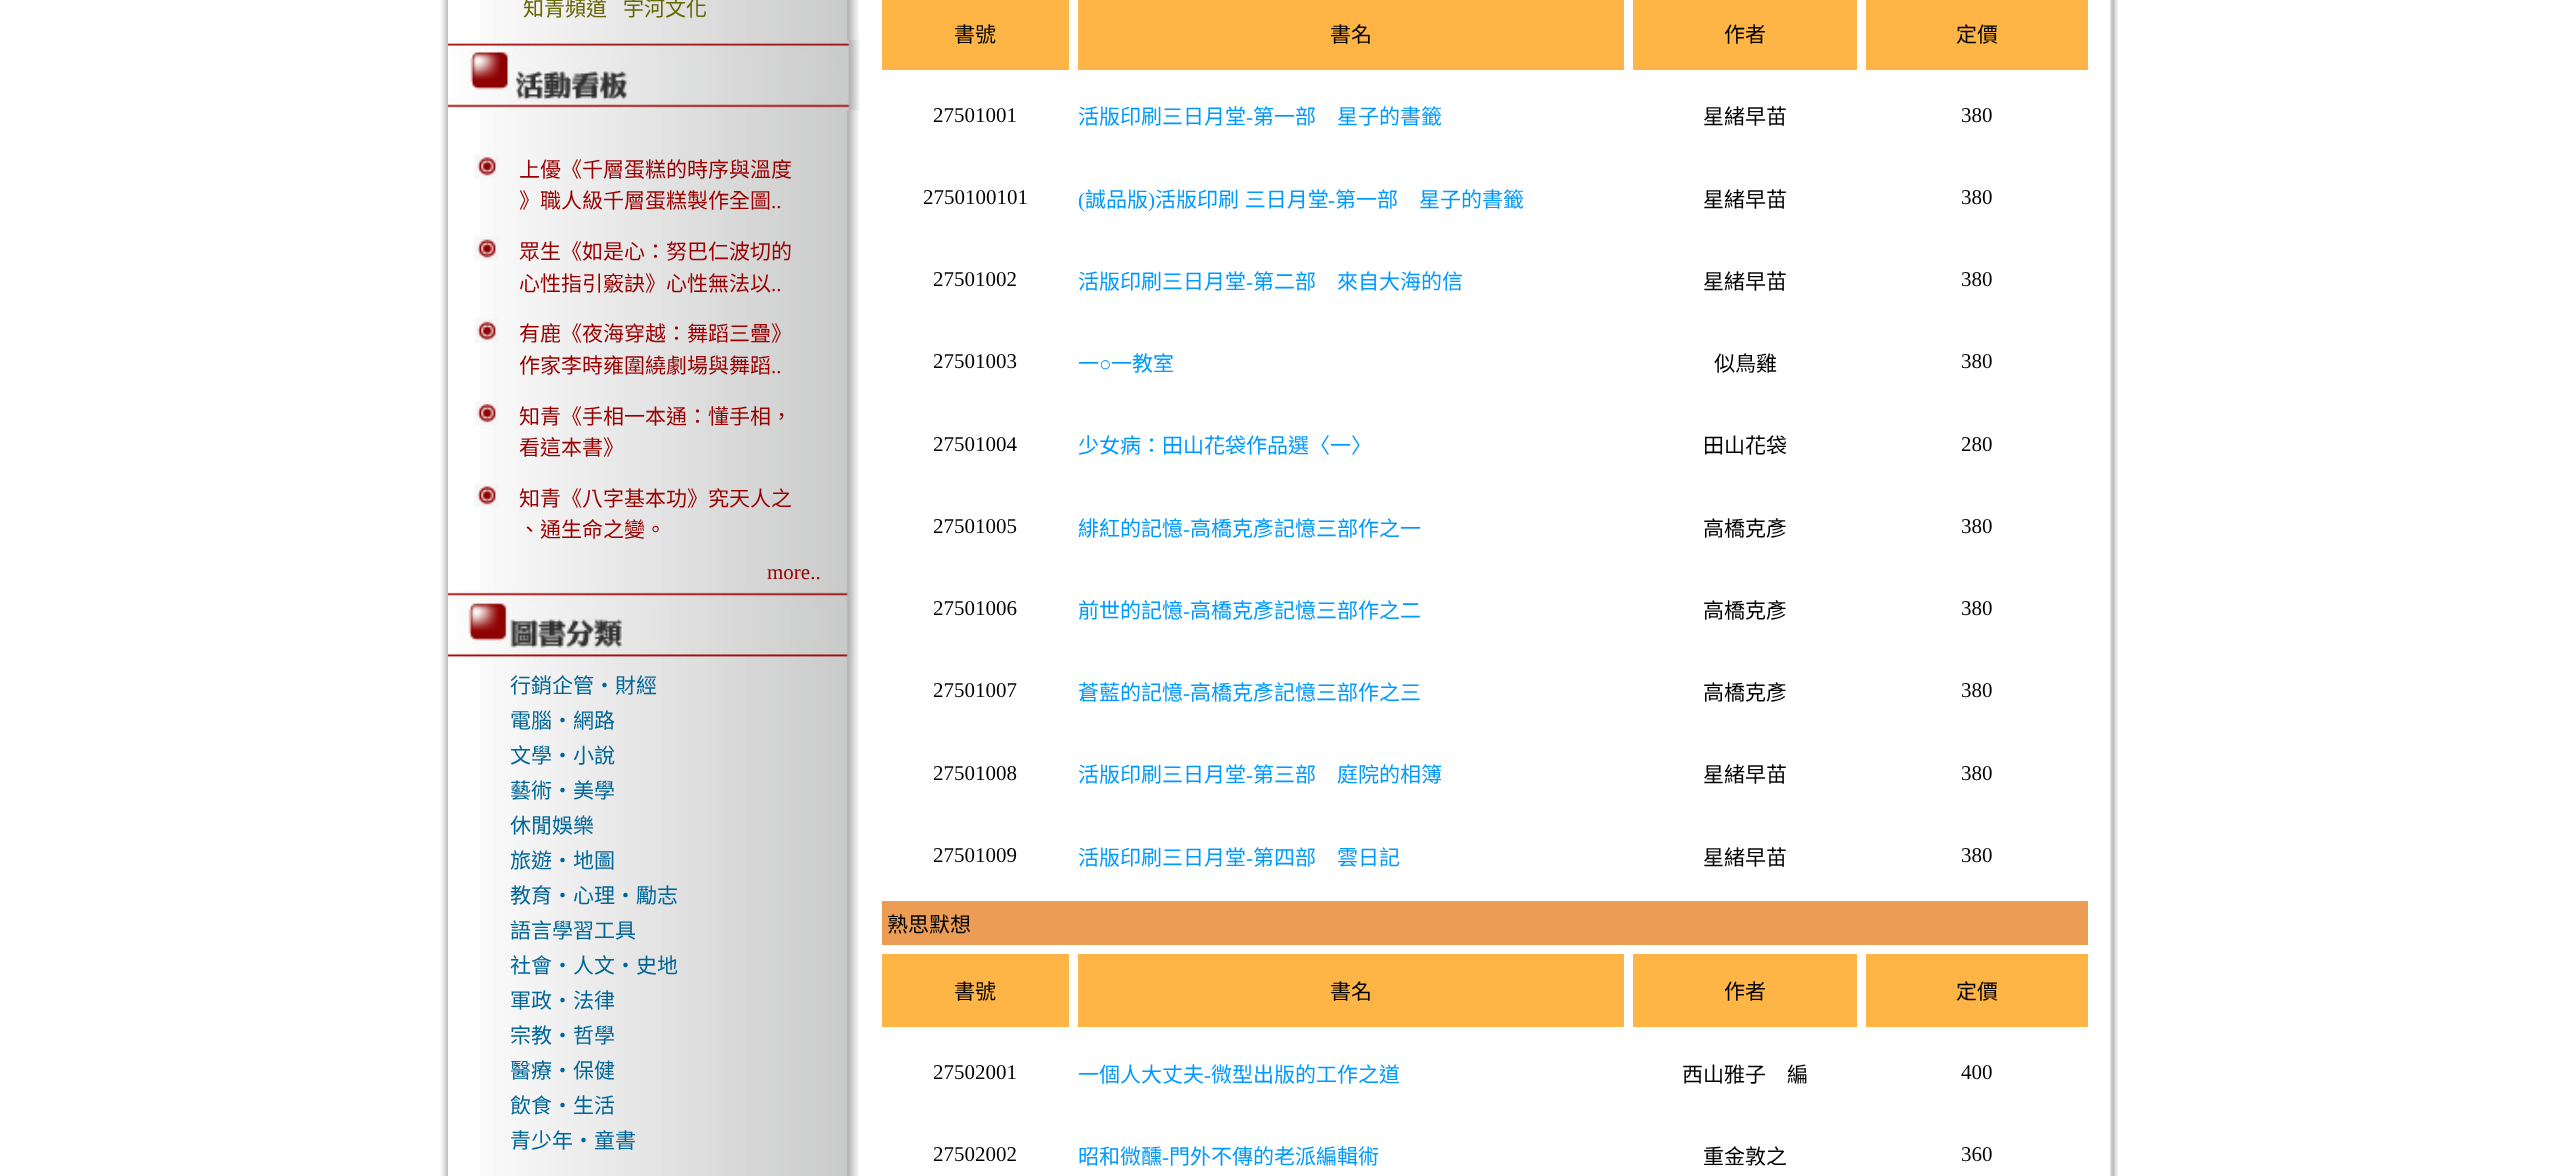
<svg xmlns="http://www.w3.org/2000/svg" width="2558" height="1176" viewBox="0 0 2558 1176">
  <rect width="100%" height="100%" fill="#ffffff"/>
  <image x="440" y="0" width="8" height="1176" href="img1.png"/>
  <image x="480" y="0" width="379" height="1176" href="img2.png"/>
  <text x="523" y="16" font-family="Noto Sans CJK TC" font-size="21" fill="#666600">知青頻道</text>
  <text x="623" y="16" font-family="Noto Sans CJK TC" font-size="21" fill="#666600">宇河文化</text>
  <image x="448" y="40" width="412" height="71" href="img3.png"/>
  <image x="474" y="154" width="25" height="25" href="img4.png"/>
  <text x="519" y="177" font-family="Noto Sans CJK TC" font-size="21" fill="#990000">上優《千層蛋糕的時序與溫度</text>
  <text x="519" y="208" font-family="Noto Sans CJK TC" font-size="21" fill="#990000">》職人級千層蛋糕製作全圖</text>
  <text x="771" y="208" font-family="Liberation Serif" font-size="21" fill="#990000">..</text>
  <image x="474" y="236" width="25" height="25" href="img5.png"/>
  <text x="519" y="259" font-family="Noto Sans CJK TC" font-size="21" fill="#990000">眾生《如是心：努巴仁波切的</text>
  <text x="519" y="291" font-family="Noto Sans CJK TC" font-size="21" fill="#990000">心性指引竅訣》心性無法以</text>
  <text x="771" y="291" font-family="Liberation Serif" font-size="21" fill="#990000">..</text>
  <image x="474" y="318" width="25" height="25" href="img6.png"/>
  <text x="519" y="341" font-family="Noto Sans CJK TC" font-size="21" fill="#990000">有鹿《夜海穿越：舞蹈三疊》</text>
  <text x="519" y="373" font-family="Noto Sans CJK TC" font-size="21" fill="#990000">作家李時雍圍繞劇場與舞蹈</text>
  <text x="771" y="373" font-family="Liberation Serif" font-size="21" fill="#990000">..</text>
  <image x="474" y="401" width="25" height="24" href="img7.png"/>
  <text x="519" y="424" font-family="Noto Sans CJK TC" font-size="21" fill="#990000">知青《手相一本通：懂手相，</text>
  <text x="519" y="455" font-family="Noto Sans CJK TC" font-size="21" fill="#990000">看這本書》</text>
  <image x="474" y="483" width="25" height="25" href="img4.png"/>
  <text x="519" y="506" font-family="Noto Sans CJK TC" font-size="21" fill="#990000">知青《八字基本功》究天人之</text>
  <text x="519" y="537" font-family="Noto Sans CJK TC" font-size="21" fill="#990000">、通生命之變。</text>
  <text x="767" y="579" font-family="Liberation Serif" font-size="21" fill="#990000">more..</text>
  <image x="448" y="590" width="406" height="70" href="img8.png"/>
  <text x="510" y="693" font-family="Noto Sans CJK TC" font-size="21" fill="#006699">行銷企管‧財經</text>
  <text x="510" y="728" font-family="Noto Sans CJK TC" font-size="21" fill="#006699">電腦‧網路</text>
  <text x="510" y="763" font-family="Noto Sans CJK TC" font-size="21" fill="#006699">文學‧小說</text>
  <text x="510" y="798" font-family="Noto Sans CJK TC" font-size="21" fill="#006699">藝術‧美學</text>
  <text x="510" y="833" font-family="Noto Sans CJK TC" font-size="21" fill="#006699">休閒娛樂</text>
  <text x="510" y="868" font-family="Noto Sans CJK TC" font-size="21" fill="#006699">旅遊‧地圖</text>
  <text x="510" y="903" font-family="Noto Sans CJK TC" font-size="21" fill="#006699">教育‧心理‧勵志</text>
  <text x="510" y="938" font-family="Noto Sans CJK TC" font-size="21" fill="#006699">語言學習工具</text>
  <text x="510" y="973" font-family="Noto Sans CJK TC" font-size="21" fill="#006699">社會‧人文‧史地</text>
  <text x="510" y="1008" font-family="Noto Sans CJK TC" font-size="21" fill="#006699">軍政‧法律</text>
  <text x="510" y="1043" font-family="Noto Sans CJK TC" font-size="21" fill="#006699">宗教‧哲學</text>
  <text x="510" y="1078" font-family="Noto Sans CJK TC" font-size="21" fill="#006699">醫療‧保健</text>
  <text x="510" y="1113" font-family="Noto Sans CJK TC" font-size="21" fill="#006699">飲食‧生活</text>
  <text x="510" y="1148" font-family="Noto Sans CJK TC" font-size="21" fill="#006699">青少年‧童書</text>
  <rect x="882" y="0" width="187" height="70" fill="#ffb546"/>
  <text x="954" y="42" font-family="Noto Sans CJK TC" font-size="21" fill="#000000">書號</text>
  <rect x="1078" y="0" width="546" height="70" fill="#ffb546"/>
  <text x="1330" y="42" font-family="Noto Sans CJK TC" font-size="21" fill="#000000">書名</text>
  <rect x="1633" y="0" width="224" height="70" fill="#ffb546"/>
  <text x="1724" y="42" font-family="Noto Sans CJK TC" font-size="21" fill="#000000">作者</text>
  <rect x="1866" y="0" width="222" height="70" fill="#ffb546"/>
  <text x="1956" y="42" font-family="Noto Sans CJK TC" font-size="21" fill="#000000">定價</text>
  <text x="933" y="122" font-family="Liberation Serif" font-size="21" fill="#000000">27501001</text>
  <text x="1078" y="124" font-family="Noto Sans CJK TC" font-size="21" fill="#0099ff">活版印刷三日月堂</text>
  <text x="1246" y="124" font-family="Liberation Serif" font-size="21" fill="#0099ff">-</text>
  <text x="1253" y="124" font-family="Noto Sans CJK TC" font-size="21" fill="#0099ff">第一部　星子的書籤</text>
  <text x="1703" y="124" font-family="Noto Sans CJK TC" font-size="21" fill="#000000">星緒早苗</text>
  <text x="1961" y="122" font-family="Liberation Serif" font-size="21" fill="#000000">380</text>
  <text x="923" y="204" font-family="Liberation Serif" font-size="21" fill="#000000">2750100101</text>
  <text x="1078" y="207" font-family="Liberation Serif" font-size="21" fill="#0099ff">(</text>
  <text x="1085" y="207" font-family="Noto Sans CJK TC" font-size="21" fill="#0099ff">誠品版</text>
  <text x="1148" y="207" font-family="Liberation Serif" font-size="21" fill="#0099ff">)</text>
  <text x="1155" y="207" word-spacing="1" font-family="Noto Sans CJK TC" font-size="21" fill="#0099ff">活版印刷 三日月堂</text>
  <text x="1328" y="207" font-family="Liberation Serif" font-size="21" fill="#0099ff">-</text>
  <text x="1335" y="207" font-family="Noto Sans CJK TC" font-size="21" fill="#0099ff">第一部　星子的書籤</text>
  <text x="1703" y="207" font-family="Noto Sans CJK TC" font-size="21" fill="#000000">星緒早苗</text>
  <text x="1961" y="204" font-family="Liberation Serif" font-size="21" fill="#000000">380</text>
  <text x="933" y="286" font-family="Liberation Serif" font-size="21" fill="#000000">27501002</text>
  <text x="1078" y="289" font-family="Noto Sans CJK TC" font-size="21" fill="#0099ff">活版印刷三日月堂</text>
  <text x="1246" y="289" font-family="Liberation Serif" font-size="21" fill="#0099ff">-</text>
  <text x="1253" y="289" font-family="Noto Sans CJK TC" font-size="21" fill="#0099ff">第二部　來自大海的信</text>
  <text x="1703" y="289" font-family="Noto Sans CJK TC" font-size="21" fill="#000000">星緒早苗</text>
  <text x="1961" y="286" font-family="Liberation Serif" font-size="21" fill="#000000">380</text>
  <text x="933" y="368" font-family="Liberation Serif" font-size="21" fill="#000000">27501003</text>
  <text x="1078" y="371" font-family="Noto Sans CJK TC" font-size="21" fill="#0099ff">一</text>
  <text x="1099" y="371" font-family="Liberation Serif" font-size="21" fill="#0099ff">○</text>
  <text x="1111" y="371" font-family="Noto Sans CJK TC" font-size="21" fill="#0099ff">一教室</text>
  <text x="1714" y="371" font-family="Noto Sans CJK TC" font-size="21" fill="#000000">似鳥雞</text>
  <text x="1961" y="368" font-family="Liberation Serif" font-size="21" fill="#000000">380</text>
  <text x="933" y="451" font-family="Liberation Serif" font-size="21" fill="#000000">27501004</text>
  <text x="1078" y="453" font-family="Noto Sans CJK TC" font-size="21" fill="#0099ff">少女病：田山花袋作品選〈一〉</text>
  <text x="1703" y="453" font-family="Noto Sans CJK TC" font-size="21" fill="#000000">田山花袋</text>
  <text x="1961" y="451" font-family="Liberation Serif" font-size="21" fill="#000000">280</text>
  <text x="933" y="533" font-family="Liberation Serif" font-size="21" fill="#000000">27501005</text>
  <text x="1078" y="536" font-family="Noto Sans CJK TC" font-size="21" fill="#0099ff">緋紅的記憶</text>
  <text x="1183" y="536" font-family="Liberation Serif" font-size="21" fill="#0099ff">-</text>
  <text x="1190" y="536" font-family="Noto Sans CJK TC" font-size="21" fill="#0099ff">高橋克彥記憶三部作之一</text>
  <text x="1703" y="536" font-family="Noto Sans CJK TC" font-size="21" fill="#000000">高橋克彥</text>
  <text x="1961" y="533" font-family="Liberation Serif" font-size="21" fill="#000000">380</text>
  <text x="933" y="615" font-family="Liberation Serif" font-size="21" fill="#000000">27501006</text>
  <text x="1078" y="618" font-family="Noto Sans CJK TC" font-size="21" fill="#0099ff">前世的記憶</text>
  <text x="1183" y="618" font-family="Liberation Serif" font-size="21" fill="#0099ff">-</text>
  <text x="1190" y="618" font-family="Noto Sans CJK TC" font-size="21" fill="#0099ff">高橋克彥記憶三部作之二</text>
  <text x="1703" y="618" font-family="Noto Sans CJK TC" font-size="21" fill="#000000">高橋克彥</text>
  <text x="1961" y="615" font-family="Liberation Serif" font-size="21" fill="#000000">380</text>
  <text x="933" y="697" font-family="Liberation Serif" font-size="21" fill="#000000">27501007</text>
  <text x="1078" y="700" font-family="Noto Sans CJK TC" font-size="21" fill="#0099ff">蒼藍的記憶</text>
  <text x="1183" y="700" font-family="Liberation Serif" font-size="21" fill="#0099ff">-</text>
  <text x="1190" y="700" font-family="Noto Sans CJK TC" font-size="21" fill="#0099ff">高橋克彥記憶三部作之三</text>
  <text x="1703" y="700" font-family="Noto Sans CJK TC" font-size="21" fill="#000000">高橋克彥</text>
  <text x="1961" y="697" font-family="Liberation Serif" font-size="21" fill="#000000">380</text>
  <text x="933" y="780" font-family="Liberation Serif" font-size="21" fill="#000000">27501008</text>
  <text x="1078" y="782" font-family="Noto Sans CJK TC" font-size="21" fill="#0099ff">活版印刷三日月堂</text>
  <text x="1246" y="782" font-family="Liberation Serif" font-size="21" fill="#0099ff">-</text>
  <text x="1253" y="782" font-family="Noto Sans CJK TC" font-size="21" fill="#0099ff">第三部　庭院的相簿</text>
  <text x="1703" y="782" font-family="Noto Sans CJK TC" font-size="21" fill="#000000">星緒早苗</text>
  <text x="1961" y="780" font-family="Liberation Serif" font-size="21" fill="#000000">380</text>
  <text x="933" y="862" font-family="Liberation Serif" font-size="21" fill="#000000">27501009</text>
  <text x="1078" y="865" font-family="Noto Sans CJK TC" font-size="21" fill="#0099ff">活版印刷三日月堂</text>
  <text x="1246" y="865" font-family="Liberation Serif" font-size="21" fill="#0099ff">-</text>
  <text x="1253" y="865" font-family="Noto Sans CJK TC" font-size="21" fill="#0099ff">第四部　雲日記</text>
  <text x="1703" y="865" font-family="Noto Sans CJK TC" font-size="21" fill="#000000">星緒早苗</text>
  <text x="1961" y="862" font-family="Liberation Serif" font-size="21" fill="#000000">380</text>
  <rect x="882" y="901" width="1206" height="44" fill="#eb9d56"/>
  <text x="887" y="932" font-family="Noto Sans CJK TC" font-size="21" fill="#000000">熟思默想</text>
  <rect x="882" y="954" width="187" height="73" fill="#ffb546"/>
  <text x="954" y="999" font-family="Noto Sans CJK TC" font-size="21" fill="#000000">書號</text>
  <rect x="1078" y="954" width="546" height="73" fill="#ffb546"/>
  <text x="1330" y="999" font-family="Noto Sans CJK TC" font-size="21" fill="#000000">書名</text>
  <rect x="1633" y="954" width="224" height="73" fill="#ffb546"/>
  <text x="1724" y="999" font-family="Noto Sans CJK TC" font-size="21" fill="#000000">作者</text>
  <rect x="1866" y="954" width="222" height="73" fill="#ffb546"/>
  <text x="1956" y="999" font-family="Noto Sans CJK TC" font-size="21" fill="#000000">定價</text>
  <text x="933" y="1079" font-family="Liberation Serif" font-size="21" fill="#000000">27502001</text>
  <text x="1078" y="1082" font-family="Noto Sans CJK TC" font-size="21" fill="#0099ff">一個人大丈夫</text>
  <text x="1204" y="1082" font-family="Liberation Serif" font-size="21" fill="#0099ff">-</text>
  <text x="1211" y="1082" font-family="Noto Sans CJK TC" font-size="21" fill="#0099ff">微型出版的工作之道</text>
  <text x="1682" y="1082" font-family="Noto Sans CJK TC" font-size="21" fill="#000000">西山雅子　編</text>
  <text x="1961" y="1079" font-family="Liberation Serif" font-size="21" fill="#000000">400</text>
  <text x="933" y="1161" font-family="Liberation Serif" font-size="21" fill="#000000">27502002</text>
  <text x="1078" y="1164" font-family="Noto Sans CJK TC" font-size="21" fill="#0099ff">昭和微醺</text>
  <text x="1162" y="1164" font-family="Liberation Serif" font-size="21" fill="#0099ff">-</text>
  <text x="1169" y="1164" font-family="Noto Sans CJK TC" font-size="21" fill="#0099ff">門外不傳的老派編輯術</text>
  <text x="1703" y="1164" font-family="Noto Sans CJK TC" font-size="21" fill="#000000">重金敦之</text>
  <text x="1961" y="1161" font-family="Liberation Serif" font-size="21" fill="#000000">360</text>
  <image x="2110" y="0" width="9" height="1176" href="img9.png"/>
</svg>
